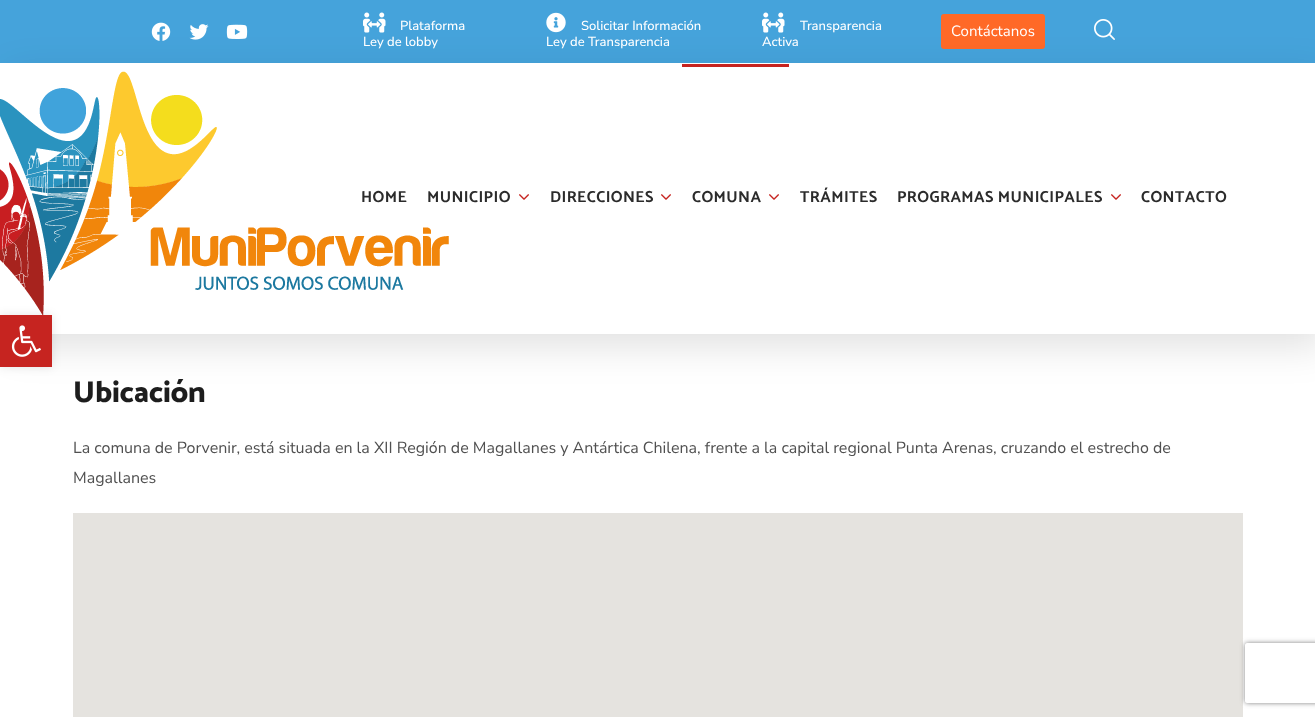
<svg xmlns="http://www.w3.org/2000/svg" width="1315" height="717" viewBox="0 0 1315 717">
  <defs>
    <clipPath id="clip1"><path d="M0 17H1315V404H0ZM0 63H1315V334H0Z" clip-rule="evenodd"/></clipPath>
    <filter id="blur1" x="-50%" y="-200%" width="200%" height="500%"><feGaussianBlur stdDeviation="19"/></filter>
    <filter id="blur2" x="-50%" y="-200%" width="200%" height="500%"><feGaussianBlur stdDeviation="5"/></filter>
    <clipPath id="clip2"><path d="M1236 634H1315V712H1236ZM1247 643H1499C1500 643 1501 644 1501 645V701C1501 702 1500 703 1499 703H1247C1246 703 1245 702 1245 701V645C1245 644 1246 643 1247 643Z" clip-rule="evenodd"/></clipPath>
    <filter id="blur3" x="-50%" y="-200%" width="200%" height="500%"><feGaussianBlur stdDeviation="2.5"/></filter>
  </defs>
  <rect width="100%" height="100%" fill="#ffffff"/>
  <rect x="0" y="0" width="1315" height="63" fill="#45a3db"/>
  <image x="151" y="22" width="20" height="19" href="img1.png"/>
  <image x="189" y="24" width="20" height="16" href="img2.png"/>
  <image x="226" y="24" width="22" height="15" href="img3.png"/>
  <rect x="941" y="14" width="104" height="35" rx="3" fill="#ff6927"/>
  <image x="1094" y="19" width="21" height="21" href="img6.png"/>
  <g clip-path="url(#clip1)">
    <rect x="9" y="75" width="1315" height="271" fill="#000000" fill-opacity="0.12" filter="url(#blur1)"/>
  </g>
  <image x="363" y="12" width="23" height="21" href="img4.png"/>
  <text x="400" y="30" font-family="Nunito Sans" font-size="13" font-weight="500" fill="#ffffff">Plataforma</text>
  <text x="363" y="46" font-family="Nunito Sans" font-size="13" font-weight="500" fill="#ffffff">Ley de lobby</text>
  <image x="546" y="12" width="20" height="21" href="img5.png"/>
  <text x="581" y="30" font-family="Nunito Sans" font-size="13" font-weight="500" fill="#ffffff">Solicitar Información</text>
  <text x="546" y="46" font-family="Nunito Sans" font-size="13" font-weight="500" fill="#ffffff">Ley de Transparencia</text>
  <image x="762" y="12" width="23" height="21" href="img4.png"/>
  <text x="800" y="30" font-family="Nunito Sans" font-size="13" font-weight="500" fill="#ffffff">Transparencia</text>
  <text x="762" y="46" font-family="Nunito Sans" font-size="13" font-weight="500" fill="#ffffff">Activa</text>
  <text x="951" y="36" font-family="Nunito Sans" font-size="15" fill="#ffffff">Contáctanos</text>
  <image x="0" y="71" width="449" height="244" href="img7.png"/>
  <rect x="682" y="64" width="107" height="3" fill="#c62420"/>
  <text x="361" y="202" font-family="Catamaran" font-size="16" font-weight="bold" letter-spacing="0.4" fill="#2b2b2b">HOME</text>
  <text x="427" y="202" font-family="Catamaran" font-size="16" font-weight="bold" letter-spacing="0.4" fill="#2b2b2b">MUNICIPIO</text>
  <image x="519" y="194" width="10" height="6" href="img8.png"/>
  <text x="550" y="202" font-family="Catamaran" font-size="16" font-weight="bold" letter-spacing="0.4" fill="#2b2b2b">DIRECCIONES</text>
  <image x="661" y="194" width="10" height="6" href="img8.png"/>
  <text x="692" y="202" font-family="Catamaran" font-size="16" font-weight="bold" letter-spacing="0.4" fill="#2b2b2b">COMUNA</text>
  <image x="769" y="194" width="10" height="6" href="img8.png"/>
  <text x="800" y="202" font-family="Catamaran" font-size="16" font-weight="bold" letter-spacing="0.4" fill="#2b2b2b">TRÁMITES</text>
  <text x="897" y="202" font-family="Catamaran" font-size="16" font-weight="bold" letter-spacing="0.4" fill="#2b2b2b">PROGRAMAS MUNICIPALES</text>
  <image x="1111" y="194" width="10" height="6" href="img8.png"/>
  <text x="1141" y="202" font-family="Catamaran" font-size="16" font-weight="bold" letter-spacing="0.4" fill="#2b2b2b">CONTACTO</text>
  <rect x="0" y="315" width="52" height="52" fill="#000000" fill-opacity="0.1" filter="url(#blur2)"/>
  <rect x="0" y="315" width="52" height="52" fill="#c62420"/>
  <image x="11" y="325" width="30" height="32" href="img9.png"/>
  <text x="73" y="402" font-family="Catamaran" font-size="30" font-weight="800" fill="#1d1d1d">Ubicación</text>
  <text x="73" y="453" font-family="Nunito Sans" font-size="16" fill="#505050">La comuna de Porvenir, está situada en la XII Región de Magallanes y Antártica Chilena, frente a la capital regional Punta Arenas, cruzando el estrecho de</text>
  <text x="73" y="483" font-family="Nunito Sans" font-size="16" fill="#505050">Magallanes</text>
  <rect x="73" y="513" width="1170" height="204" fill="#e5e3df"/>
  <g clip-path="url(#clip2)">
    <rect x="1245" y="643" width="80" height="60" rx="2" fill="#808080" filter="url(#blur3)"/>
  </g>
</svg>
